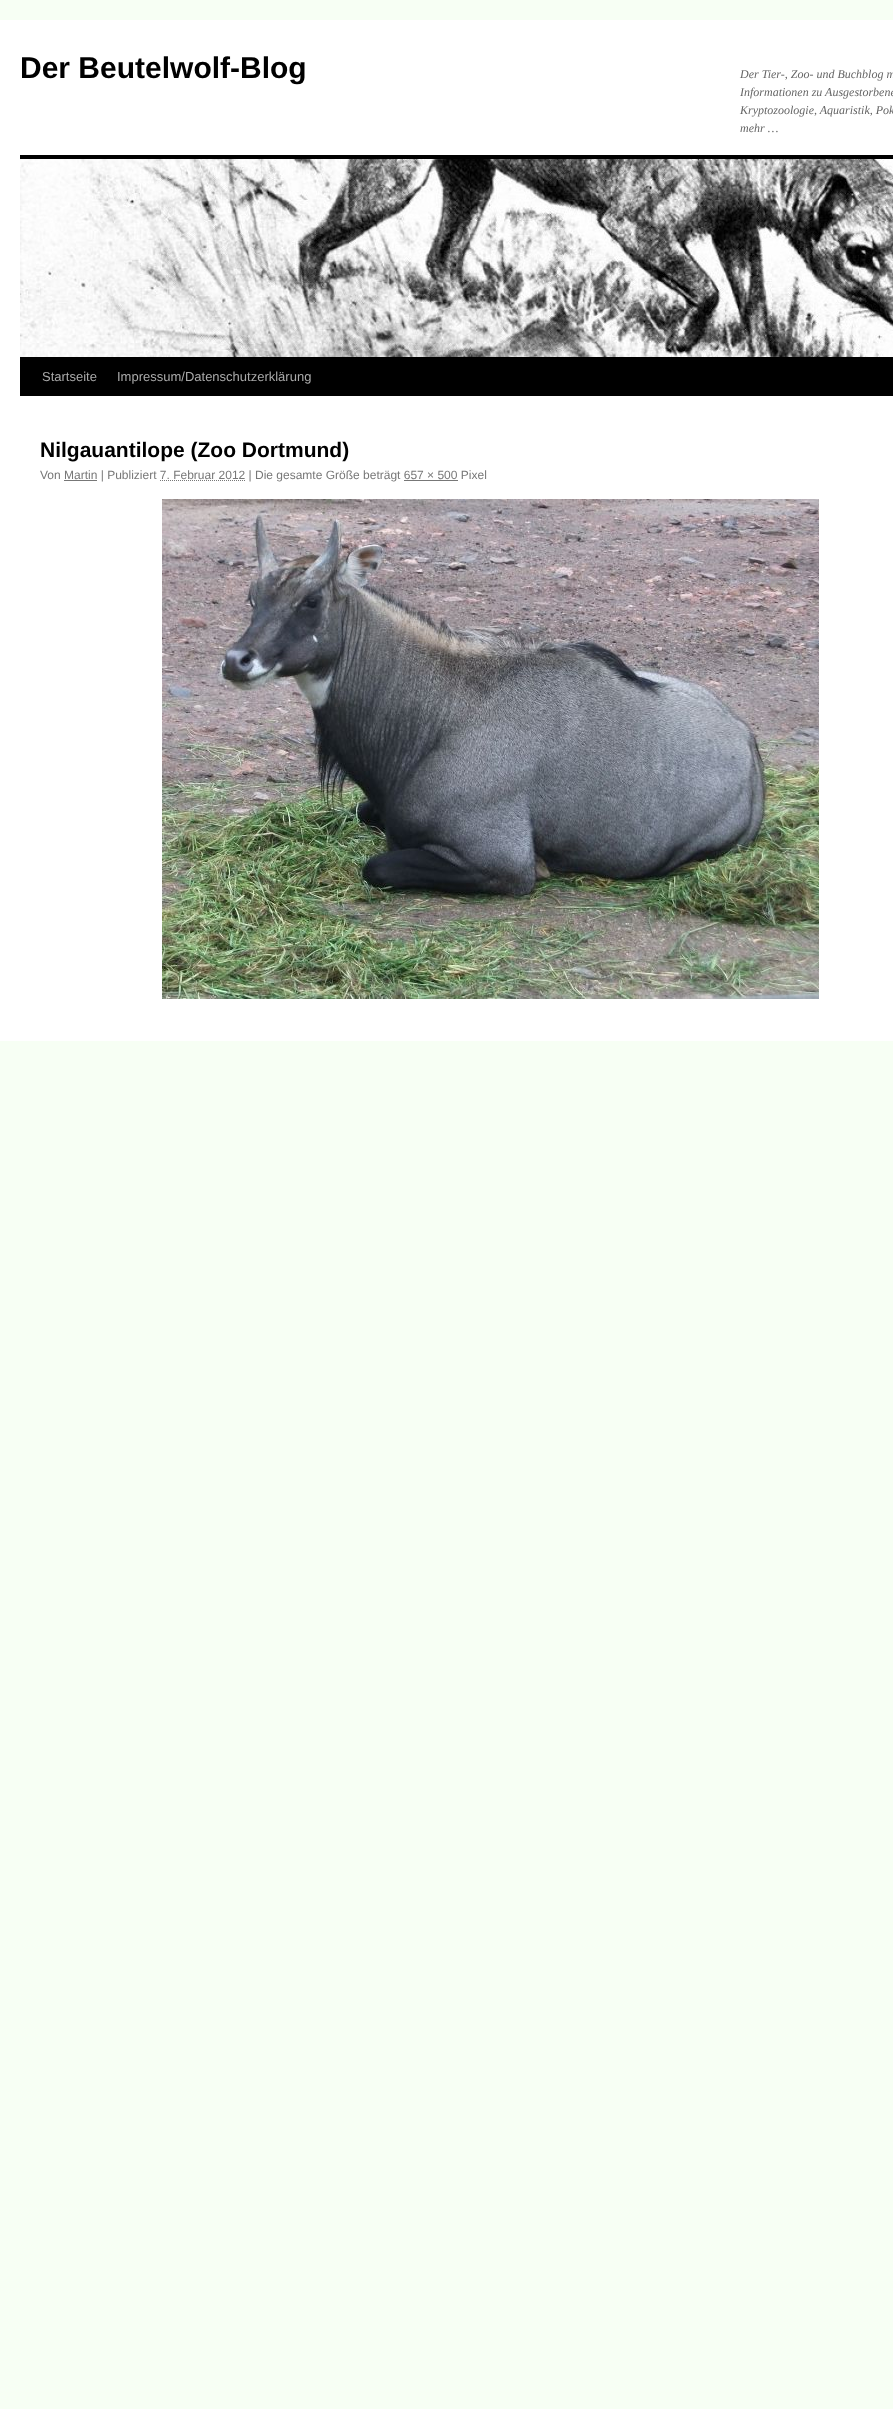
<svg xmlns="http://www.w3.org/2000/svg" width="893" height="2409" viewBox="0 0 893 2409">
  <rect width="100%" height="100%" fill="#f7fff4"/>
  <rect x="0" y="20" width="893" height="1021" fill="#ffffff"/>
  <text x="20" y="78" font-family="Liberation Sans" font-size="30" font-weight="bold" fill="#000000">Der Beutelwolf-Blog</text>
  <text x="740" y="78" font-family="Liberation Serif" font-size="12" font-style="italic" fill="#666666">Der Tier-, Zoo- und Buchblog m</text>
  <text x="740" y="96" font-family="Liberation Serif" font-size="12" font-style="italic" fill="#666666">Informationen zu Ausgestorbene</text>
  <text x="740" y="114" font-family="Liberation Serif" font-size="12" font-style="italic" fill="#666666">Kryptozoologie, Aquaristik, Pok</text>
  <text x="740" y="132" font-family="Liberation Serif" font-size="12" font-style="italic" fill="#666666">mehr …</text>
  <rect x="20" y="155" width="873" height="4" fill="#000000"/>
  <rect x="20" y="357" width="873" height="39" fill="#000000"/>
  <image x="20" y="159" width="873" height="198" href="img1.png"/>
  <text x="42" y="381" font-family="Liberation Sans" font-size="13" fill="#aaaaaa">Startseite</text>
  <text x="117" y="381" font-family="Liberation Sans" font-size="13" fill="#aaaaaa">Impressum/Datenschutzerklärung</text>
  <text x="40" y="457" font-family="Liberation Sans" font-size="21" font-weight="bold" fill="#000000">Nilgauantilope (Zoo Dortmund)</text>
  <text x="40" y="479" font-family="Liberation Sans" font-size="12" fill="#777777">Von Martin | Publiziert 7. Februar 2012 | Die gesamte Größe beträgt 657 × 500 Pixel</text>
  <rect x="64" y="480" width="33" height="1" fill="#777777"/>
  <path d="M160 480.5H245.5" fill="none" stroke="#777777" stroke-dasharray="1 1"/>
  <rect x="404" y="480" width="54" height="1" fill="#777777"/>
  <image x="162" y="499" width="657" height="500" href="img2.png"/>
</svg>
